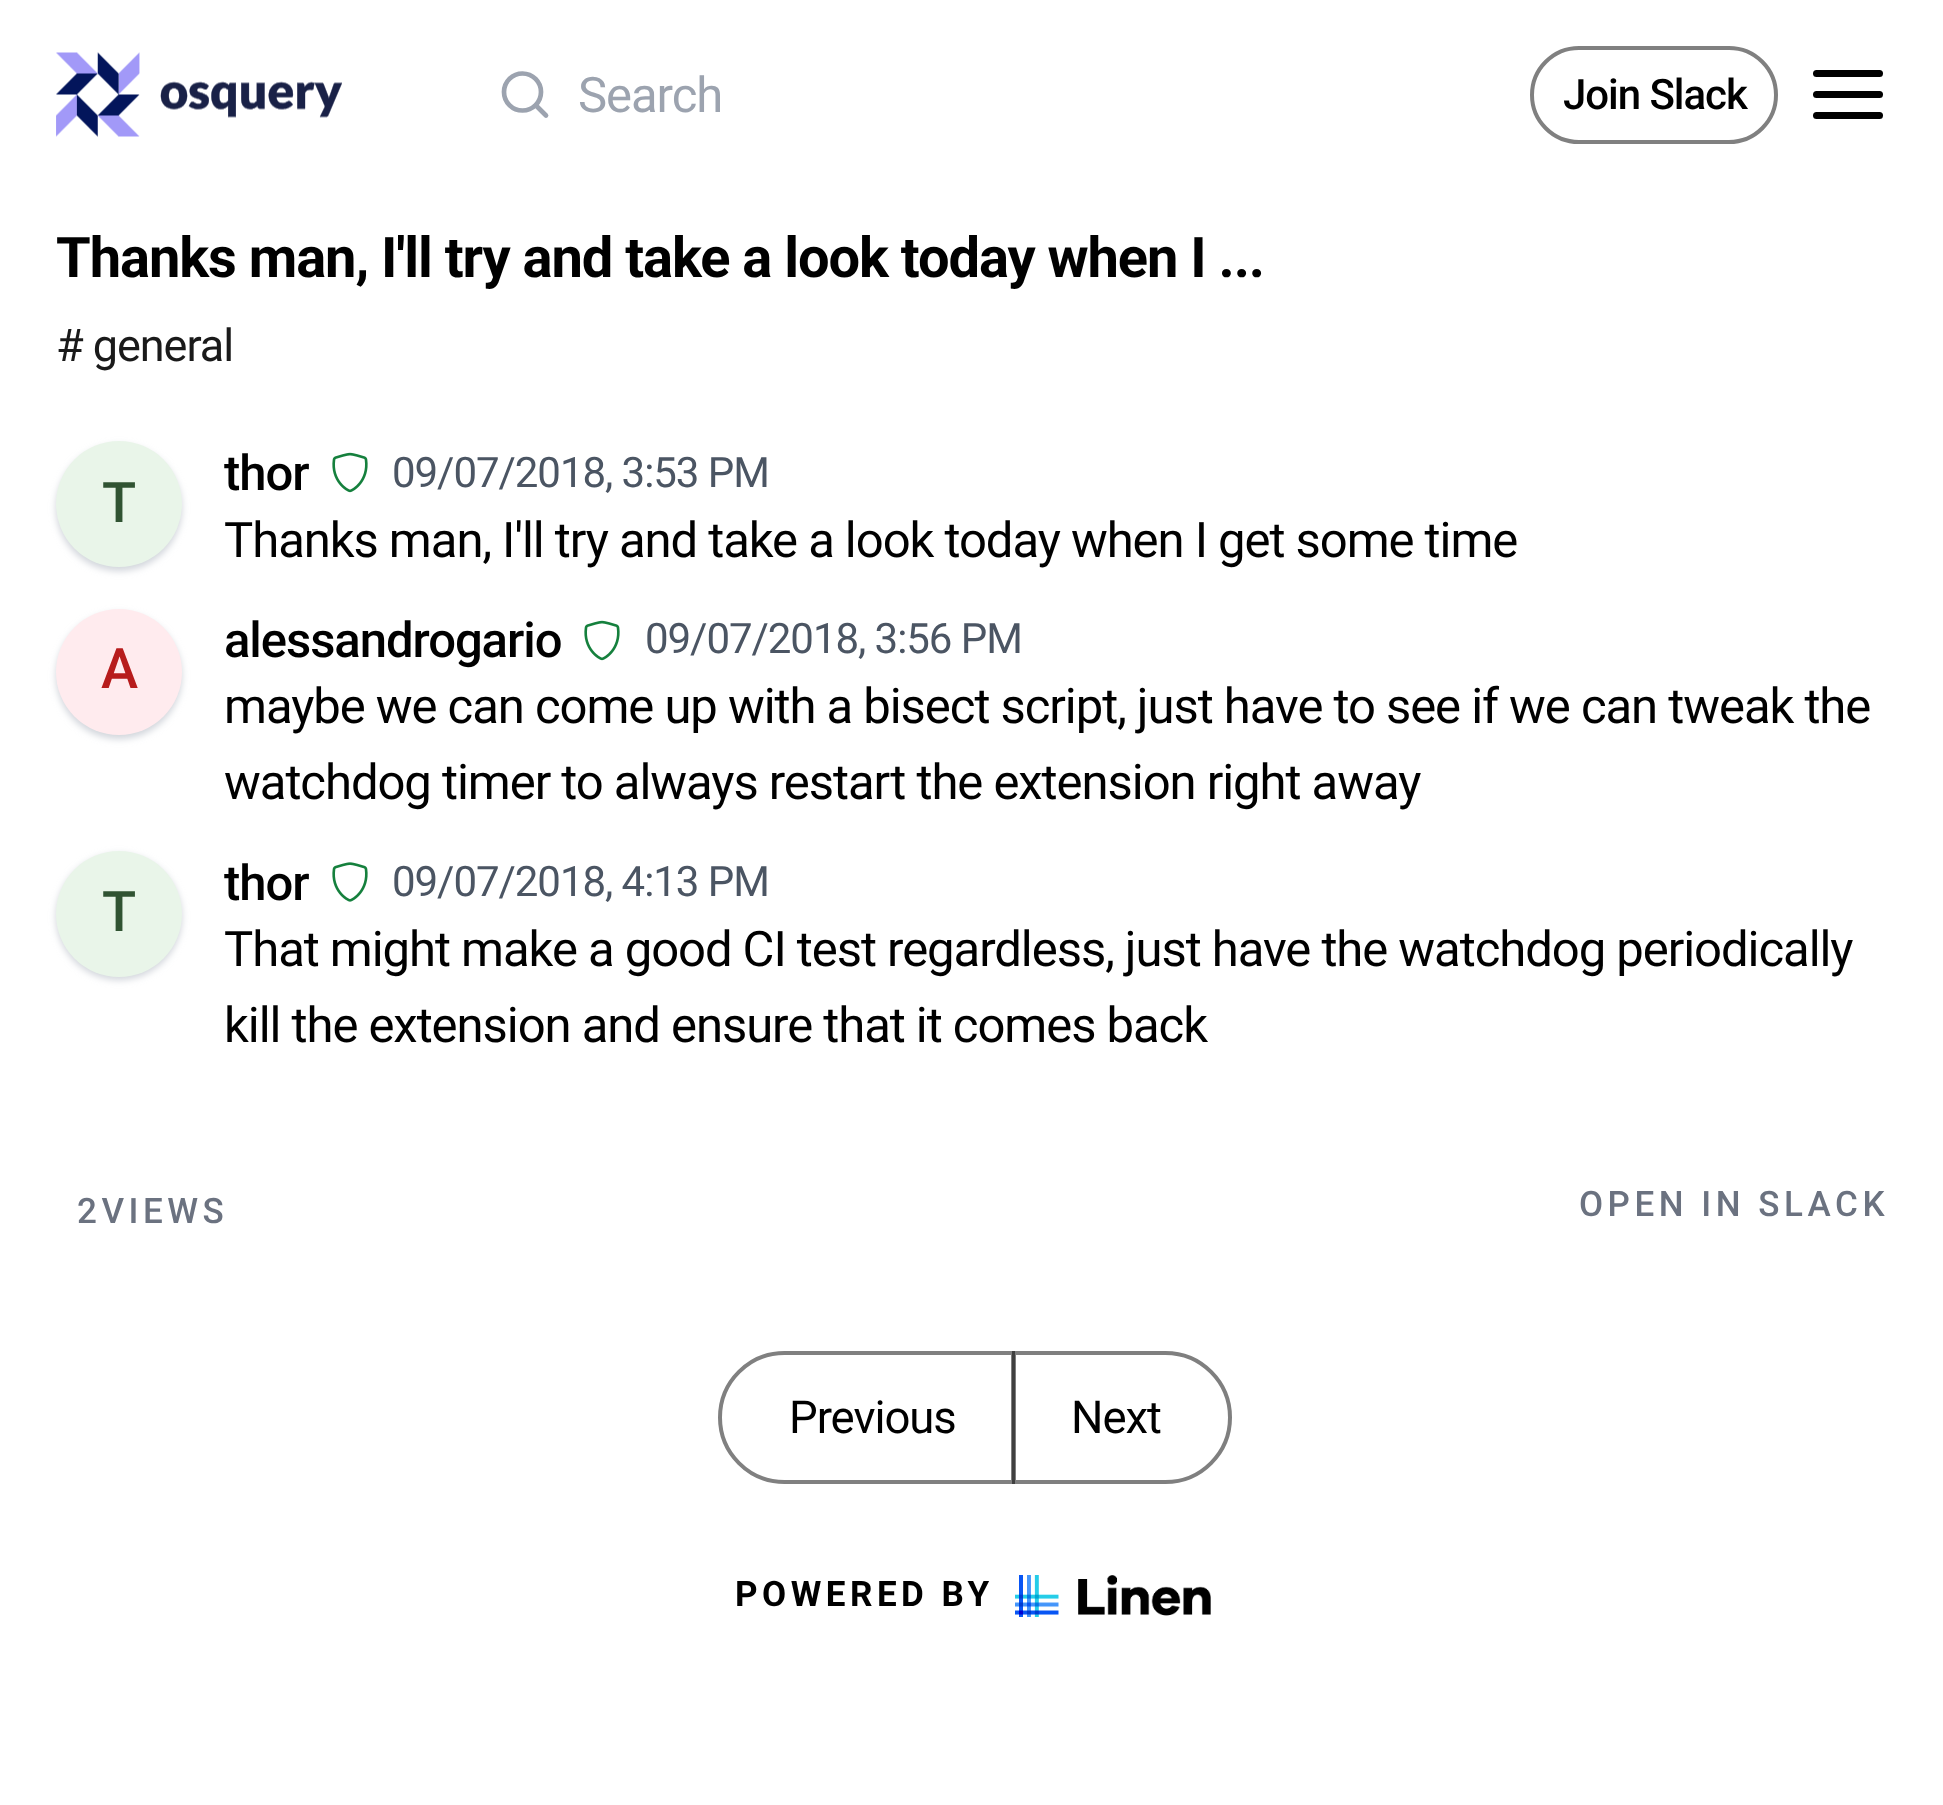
<svg xmlns="http://www.w3.org/2000/svg" width="1943" height="1805" viewBox="0 0 1943 1805">
  <defs>
    <filter id="blur1" x="-50%" y="-200%" width="200%" height="500%"><feGaussianBlur stdDeviation="3.5"/></filter>
  </defs>
  <rect width="100%" height="100%" fill="#ffffff"/>
  <image x="56" y="52" width="286" height="85" href="img1.png"/>
  <circle cx="522.5" cy="92" r="18.5" fill="none" stroke="#9ca3af" stroke-width="4.7"/>
  <path d="M546 115.5L536 105.5" fill="none" stroke="#9ca3af" stroke-width="4.7" stroke-linecap="round" stroke-linejoin="round"/>
  <text x="578" y="112" font-family="Roboto" font-size="49" letter-spacing="-1.05" fill="#9ca3af">Search</text>
  <rect x="1532" y="48" width="244" height="94" rx="47" fill="none" stroke="#808080" stroke-width="4"/>
  <text x="1563" y="109" font-family="Roboto" font-size="42" font-weight="500" letter-spacing="-1.05" fill="#000000">Join Slack</text>
  <path d="M1816.5 94.5H1879.5" fill="none" stroke="#000000" stroke-width="7" stroke-linecap="round" stroke-linejoin="round"/>
  <path d="M1816.5 73.5H1879.5" fill="none" stroke="#000000" stroke-width="7" stroke-linecap="round" stroke-linejoin="round"/>
  <path d="M1816.5 115.5H1879.5" fill="none" stroke="#000000" stroke-width="7" stroke-linecap="round" stroke-linejoin="round"/>
  <text x="56" y="277" font-family="Roboto" font-size="56" font-weight="bold" letter-spacing="-1.05" fill="#000000">Thanks man, I'll try and take a look today when I ...</text>
  <text x="56" y="361" font-family="Roboto" font-size="45" letter-spacing="-1.05" fill="#1a1a1a"># general</text>
  <rect x="56" y="445" width="126" height="126" rx="63" fill="#d1d5db" filter="url(#blur1)"/>
  <circle cx="119" cy="504" r="63" fill="#e9f5e9"/>
  <text x="102" y="522" font-family="Roboto" font-size="56" font-weight="500" letter-spacing="-1.05" fill="#305332">T</text>
  <text x="224" y="490" font-family="Roboto" font-size="49" font-weight="500" letter-spacing="-1.05" fill="#000000">thor</text>
  <image x="332" y="452" width="36" height="41" href="img2.png"/>
  <text x="392" y="487" font-family="Roboto" font-size="42" letter-spacing="-1.05" fill="#4b5563">09/07/2018, 3:53 PM</text>
  <text x="224" y="557" font-family="Roboto" font-size="49" letter-spacing="-1.05" fill="#000000">Thanks man, I'll try and take a look today when I get some time</text>
  <rect x="56" y="613" width="126" height="126" rx="63" fill="#d1d5db" filter="url(#blur1)"/>
  <circle cx="119" cy="672" r="63" fill="#ffebee"/>
  <text x="101" y="688" font-family="Roboto" font-size="56" font-weight="500" letter-spacing="-1.05" fill="#b71c1c">A</text>
  <text x="224" y="657" font-family="Roboto" font-size="49" font-weight="500" letter-spacing="-1.05" fill="#000000">alessandrogario</text>
  <image x="584" y="620" width="36" height="41" href="img2.png"/>
  <text x="645" y="653" font-family="Roboto" font-size="42" letter-spacing="-1.05" fill="#4b5563">09/07/2018, 3:56 PM</text>
  <text x="224" y="723" font-family="Roboto" font-size="49" letter-spacing="-1.05" fill="#000000">maybe we can come up with a bisect script, just have to see if we can tweak the</text>
  <text x="224" y="799" font-family="Roboto" font-size="49" letter-spacing="-1.05" fill="#000000">watchdog timer to always restart the extension right away</text>
  <rect x="56" y="854" width="126" height="126" rx="63" fill="#d1d5db" filter="url(#blur1)"/>
  <circle cx="119" cy="914" r="63" fill="#e9f5e9"/>
  <text x="102" y="931" font-family="Roboto" font-size="56" font-weight="500" letter-spacing="-1.05" fill="#305332">T</text>
  <text x="224" y="900" font-family="Roboto" font-size="49" font-weight="500" letter-spacing="-1.05" fill="#000000">thor</text>
  <image x="332" y="862" width="36" height="40" href="img3.png"/>
  <text x="392" y="896" font-family="Roboto" font-size="42" letter-spacing="-1.05" fill="#4b5563">09/07/2018, 4:13 PM</text>
  <text x="224" y="966" font-family="Roboto" font-size="49" letter-spacing="-1.05" fill="#000000">That might make a good CI test regardless, just have the watchdog periodically</text>
  <text x="224" y="1042" font-family="Roboto" font-size="49" letter-spacing="-1.05" fill="#000000">kill the extension and ensure that it comes back</text>
  <text x="77" y="1223" font-family="Roboto" font-size="35" font-weight="500" letter-spacing="4.5" fill="#6b7280">2VIEWS</text>
  <text x="1579" y="1216" font-family="Roboto" font-size="35" font-weight="500" letter-spacing="4.5" fill="#6b7280">OPEN IN SLACK</text>
  <path d="M784.5 1353H1013V1482H784.5C749 1482 720 1453 720 1417.5C720 1382 749 1353 784.5 1353Z" fill="none" stroke="#808080" stroke-width="4"/>
  <text x="789" y="1433" font-family="Roboto" font-size="45.5" letter-spacing="-1.05" fill="#000000">Previous</text>
  <path d="M1014 1353H1165.5C1201 1353 1230 1382 1230 1417.5C1230 1453 1201 1482 1165.5 1482H1014Z" fill="none" stroke="#000000" stroke-opacity="0.5" stroke-width="4"/>
  <text x="1071" y="1433" font-family="Roboto" font-size="45.5" letter-spacing="-1.05" fill="#000000">Next</text>
  <text x="735" y="1606" font-family="Roboto" font-size="35" font-weight="bold" letter-spacing="4.5" fill="#000000">POWERED BY</text>
  <image x="1015" y="1575" width="196" height="42" href="img4.png"/>
</svg>
